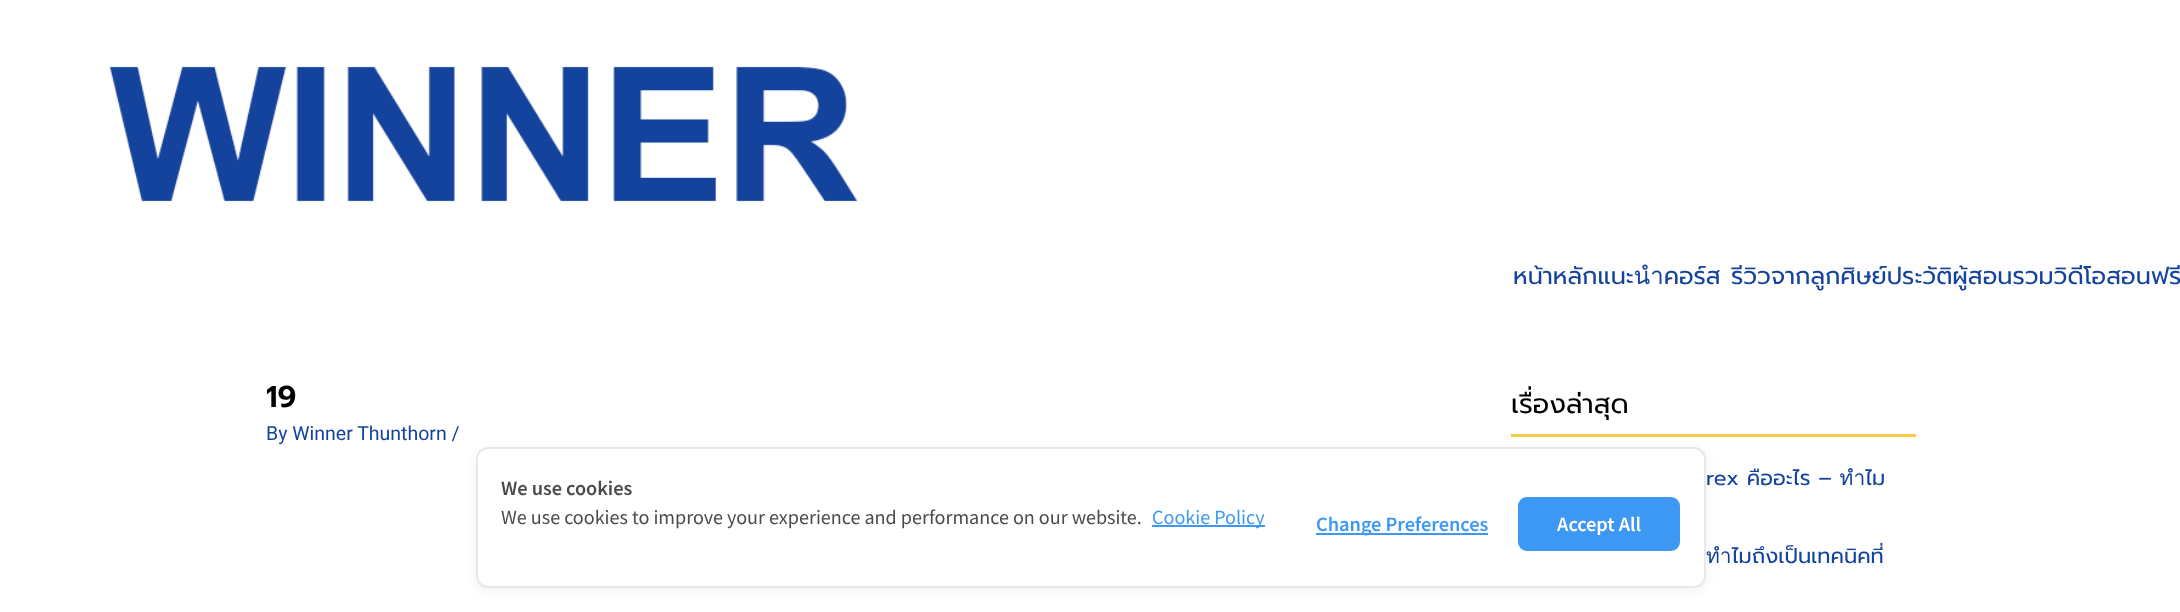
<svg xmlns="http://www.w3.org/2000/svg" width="2180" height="612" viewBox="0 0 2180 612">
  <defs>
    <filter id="blur1" x="-50%" y="-200%" width="200%" height="500%"><feGaussianBlur stdDeviation="6"/></filter>
  </defs>
  <rect width="100%" height="100%" fill="#ffffff"/>
  <image x="109" y="66" width="749" height="136" href="img1.png"/>
  <text x="1513" y="284" font-family="Prompt" font-size="24" fill="#14439d">หน้าหลักแนะนำคอร์ส</text>
  <text x="1731" y="284" font-family="Prompt" font-size="24" fill="#14439d">รีวิวจากลูกศิษย์ประวัติผู้สอนรวมวิดีโอสอนฟรี</text>
  <text x="266" y="407" font-family="Prompt" font-size="30" font-weight="600" fill="#000000">19</text>
  <text x="266" y="440" font-family="Roboto" font-size="19.5" fill="#14439d">By Winner Thunthorn /</text>
  <rect x="1511" y="434" width="405" height="3" fill="#f6cc46"/>
  <text x="1511" y="413" font-family="Prompt" font-size="27" fill="#000000">เรื่องล่าสุด</text>
  <text x="1706" y="485" font-family="Prompt" font-size="21" fill="#14439d">rex คืออะไร – ทำไม</text>
  <text x="1706" y="563" font-family="Prompt" font-size="21" fill="#14439d">ทำไมถึงเป็นเทคนิคที่</text>
  <rect x="476" y="450" width="1230" height="141" rx="12" fill="#000000" fill-opacity="0.05" filter="url(#blur1)"/>
  <rect x="477" y="448" width="1228" height="139" rx="11" fill="#ffffff" stroke="#e8e8e8" stroke-width="2"/>
  <text x="501" y="495" font-family="Noto Sans JP" font-size="18" font-weight="600" fill="#4a4a4a">We use cookies</text>
  <text x="501" y="524" font-family="Noto Sans JP" font-size="18" fill="#4a4a4a">We use cookies to improve your experience and performance on our website.</text>
  <rect x="1152" y="525" width="113" height="2" fill="#3d98f3"/>
  <text x="1152" y="524" font-family="Noto Sans JP" font-size="18" fill="#3d98f3">Cookie Policy</text>
  <rect x="1316" y="533" width="172" height="2" fill="#3d98f3"/>
  <text x="1316" y="531" font-family="Noto Sans JP" font-size="18" font-weight="600" fill="#3d98f3">Change Preferences</text>
  <rect x="1518" y="497" width="162" height="54" rx="9" fill="#3d98f3"/>
  <text x="1557" y="531" font-family="Noto Sans JP" font-size="18" font-weight="600" fill="#ffffff">Accept All</text>
</svg>
